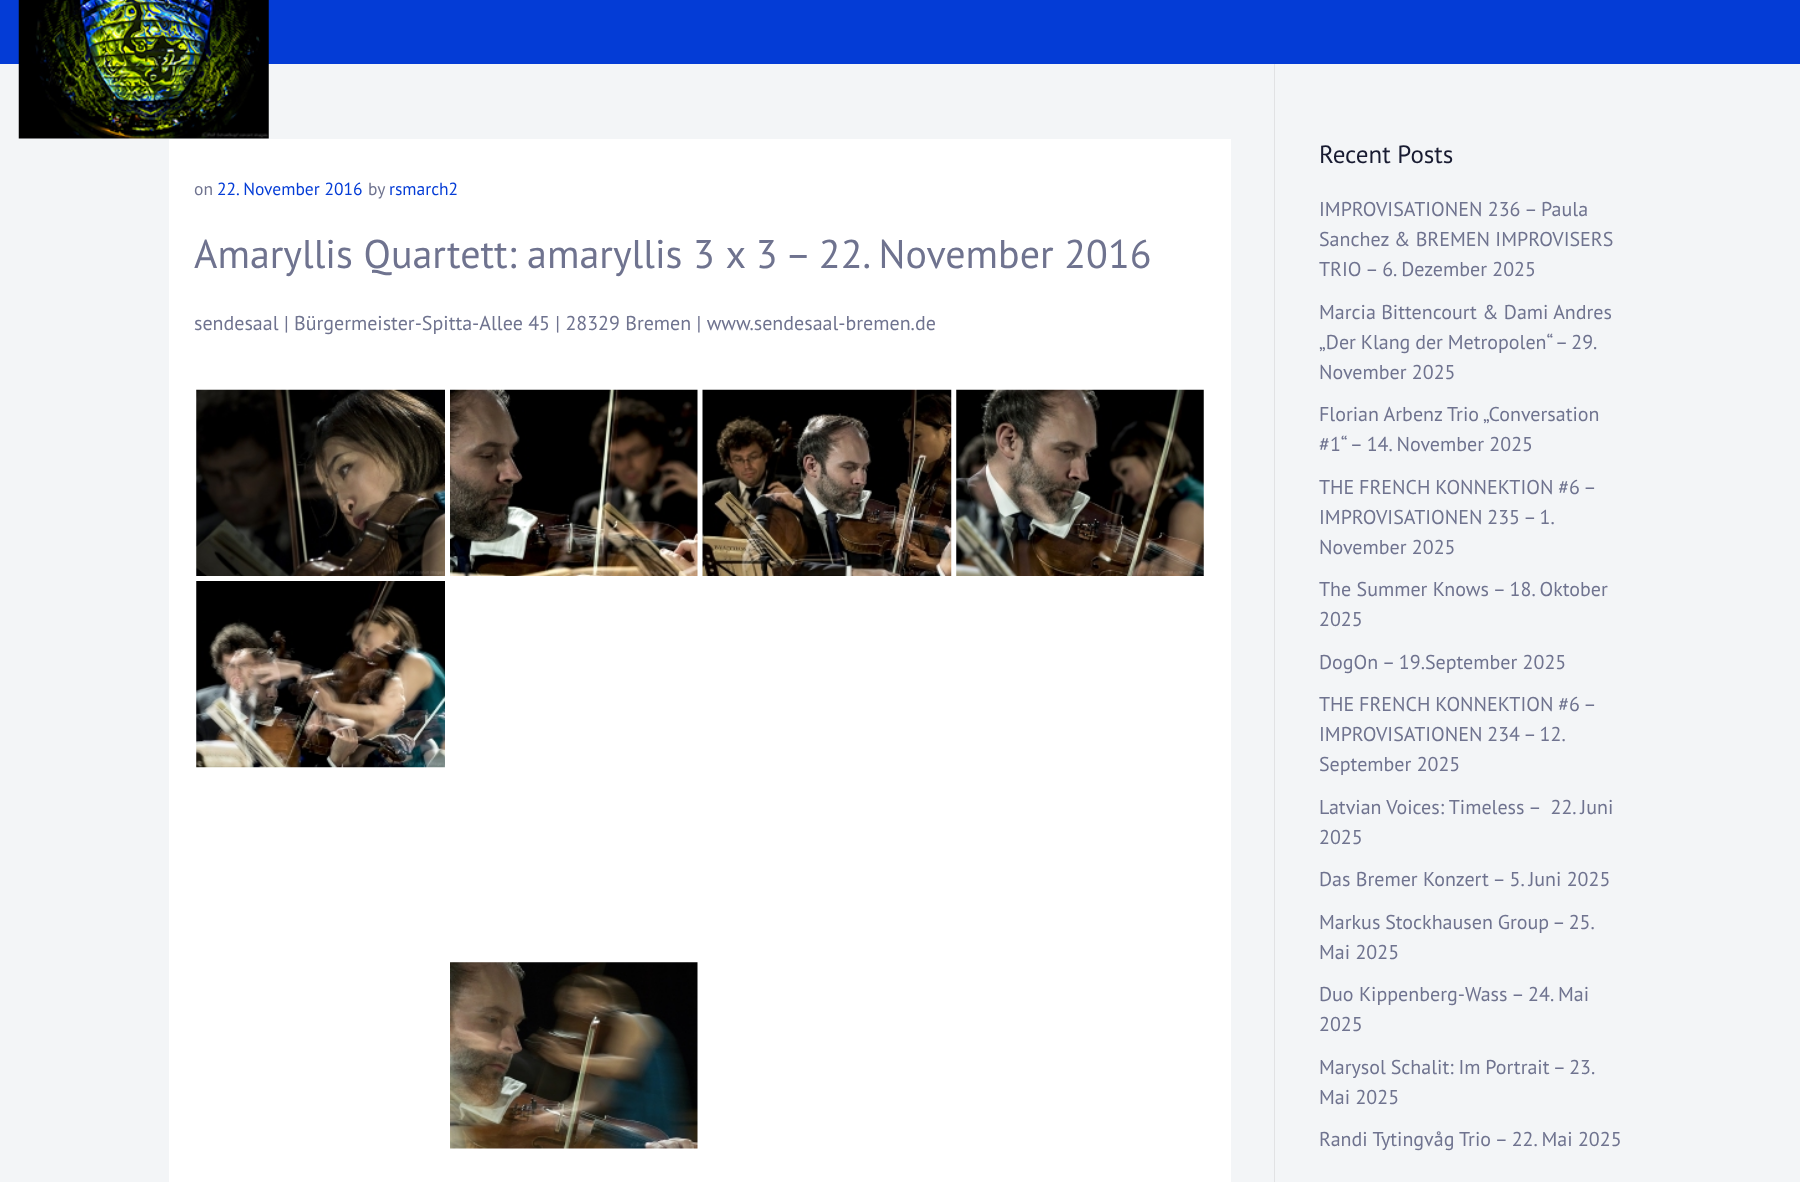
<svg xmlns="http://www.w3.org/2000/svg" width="1800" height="1182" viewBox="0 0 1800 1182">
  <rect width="100%" height="100%" fill="#f3f5f7"/>
  <rect x="0" y="0" width="1800" height="64" fill="#043cd6"/>
  <image x="18" y="0" width="251" height="139" href="img1.png"/>
  <rect x="1274" y="64" width="1" height="1118" fill="#e1e2e4"/>
  <rect x="169" y="139" width="1062" height="1043" fill="#ffffff"/>
  <text x="194" y="195" font-family="PT Sans" font-size="17.5" fill="#6f738f">on</text>
  <text x="217" y="195" font-family="PT Sans" font-size="17.5" fill="#043cd6">22. November 2016</text>
  <text x="368" y="195" font-family="PT Sans" font-size="17.5" fill="#6f738f">by</text>
  <text x="389" y="195" font-family="PT Sans" font-size="17.5" fill="#043cd6">rsmarch2</text>
  <text x="194" y="268" font-family="PT Sans" font-size="40" fill="#6f738f">Amaryllis Quartett: amaryllis 3 x 3 – 22. November 2016</text>
  <text x="194" y="330" font-family="PT Sans" font-size="20" fill="#6f738f">sendesaal | Bürgermeister-Spitta-Allee 45 | 28329 Bremen | www.sendesaal-bremen.de</text>
  <image x="196" y="389" width="249" height="187" href="img2.png"/>
  <image x="450" y="389" width="248" height="187" href="img3.png"/>
  <image x="702" y="389" width="250" height="187" href="img4.png"/>
  <image x="956" y="389" width="248" height="187" href="img5.png"/>
  <image x="196" y="581" width="249" height="187" href="img6.png"/>
  <image x="450" y="962" width="248" height="187" href="img7.png"/>
  <text x="1319" y="163" font-family="PT Sans" font-size="25" fill="#181b31">Recent Posts</text>
  <text x="1319" y="216" font-family="PT Sans" font-size="20" fill="#6f738f">IMPROVISATIONEN 236 – Paula</text>
  <text x="1319" y="246" font-family="PT Sans" font-size="20" fill="#6f738f">Sanchez &amp; BREMEN IMPROVISERS</text>
  <text x="1319" y="276" font-family="PT Sans" font-size="20" fill="#6f738f">TRIO – 6. Dezember 2025</text>
  <text x="1319" y="319" font-family="PT Sans" font-size="20" fill="#6f738f">Marcia Bittencourt &amp; Dami Andres</text>
  <text x="1319" y="349" word-spacing="-0.5" font-family="PT Sans" font-size="20" fill="#6f738f">„Der Klang der Metropolen“ – 29.</text>
  <text x="1319" y="379" font-family="PT Sans" font-size="20" fill="#6f738f">November 2025</text>
  <text x="1319" y="421" font-family="PT Sans" font-size="20" fill="#6f738f">Florian Arbenz Trio „Conversation</text>
  <text x="1319" y="451" font-family="PT Sans" font-size="20" fill="#6f738f">#1“ – 14. November 2025</text>
  <text x="1319" y="494" word-spacing="-0.5" font-family="PT Sans" font-size="20" fill="#6f738f">THE FRENCH KONNEKTION #6 –</text>
  <text x="1319" y="524" word-spacing="-0.5" font-family="PT Sans" font-size="20" fill="#6f738f">IMPROVISATIONEN 235 – 1.</text>
  <text x="1319" y="554" font-family="PT Sans" font-size="20" fill="#6f738f">November 2025</text>
  <text x="1319" y="596" font-family="PT Sans" font-size="20" fill="#6f738f">The Summer Knows – 18. Oktober</text>
  <text x="1319" y="626" font-family="PT Sans" font-size="20" fill="#6f738f">2025</text>
  <text x="1319" y="669" font-family="PT Sans" font-size="20" fill="#6f738f">DogOn – 19.September 2025</text>
  <text x="1319" y="711" word-spacing="-0.5" font-family="PT Sans" font-size="20" fill="#6f738f">THE FRENCH KONNEKTION #6 –</text>
  <text x="1319" y="741" word-spacing="-0.5" font-family="PT Sans" font-size="20" fill="#6f738f">IMPROVISATIONEN 234 – 12.</text>
  <text x="1319" y="771" font-family="PT Sans" font-size="20" fill="#6f738f">September 2025</text>
  <text x="1319" y="814" font-family="PT Sans" font-size="20" fill="#6f738f" xml:space="preserve">Latvian Voices: Timeless –  22. Juni</text>
  <text x="1319" y="844" font-family="PT Sans" font-size="20" fill="#6f738f">2025</text>
  <text x="1319" y="886" font-family="PT Sans" font-size="20" fill="#6f738f">Das Bremer Konzert – 5. Juni 2025</text>
  <text x="1319" y="929" word-spacing="-0.5" font-family="PT Sans" font-size="20" fill="#6f738f">Markus Stockhausen Group – 25.</text>
  <text x="1319" y="959" font-family="PT Sans" font-size="20" fill="#6f738f">Mai 2025</text>
  <text x="1319" y="1001" font-family="PT Sans" font-size="20" fill="#6f738f">Duo Kippenberg-Wass – 24. Mai</text>
  <text x="1319" y="1031" font-family="PT Sans" font-size="20" fill="#6f738f">2025</text>
  <text x="1319" y="1074" word-spacing="-0.5" font-family="PT Sans" font-size="20" fill="#6f738f">Marysol Schalit: Im Portrait – 23.</text>
  <text x="1319" y="1104" font-family="PT Sans" font-size="20" fill="#6f738f">Mai 2025</text>
  <text x="1319" y="1146" font-family="PT Sans" font-size="20" fill="#6f738f">Randi Tytingvåg Trio – 22. Mai 2025</text>
</svg>
